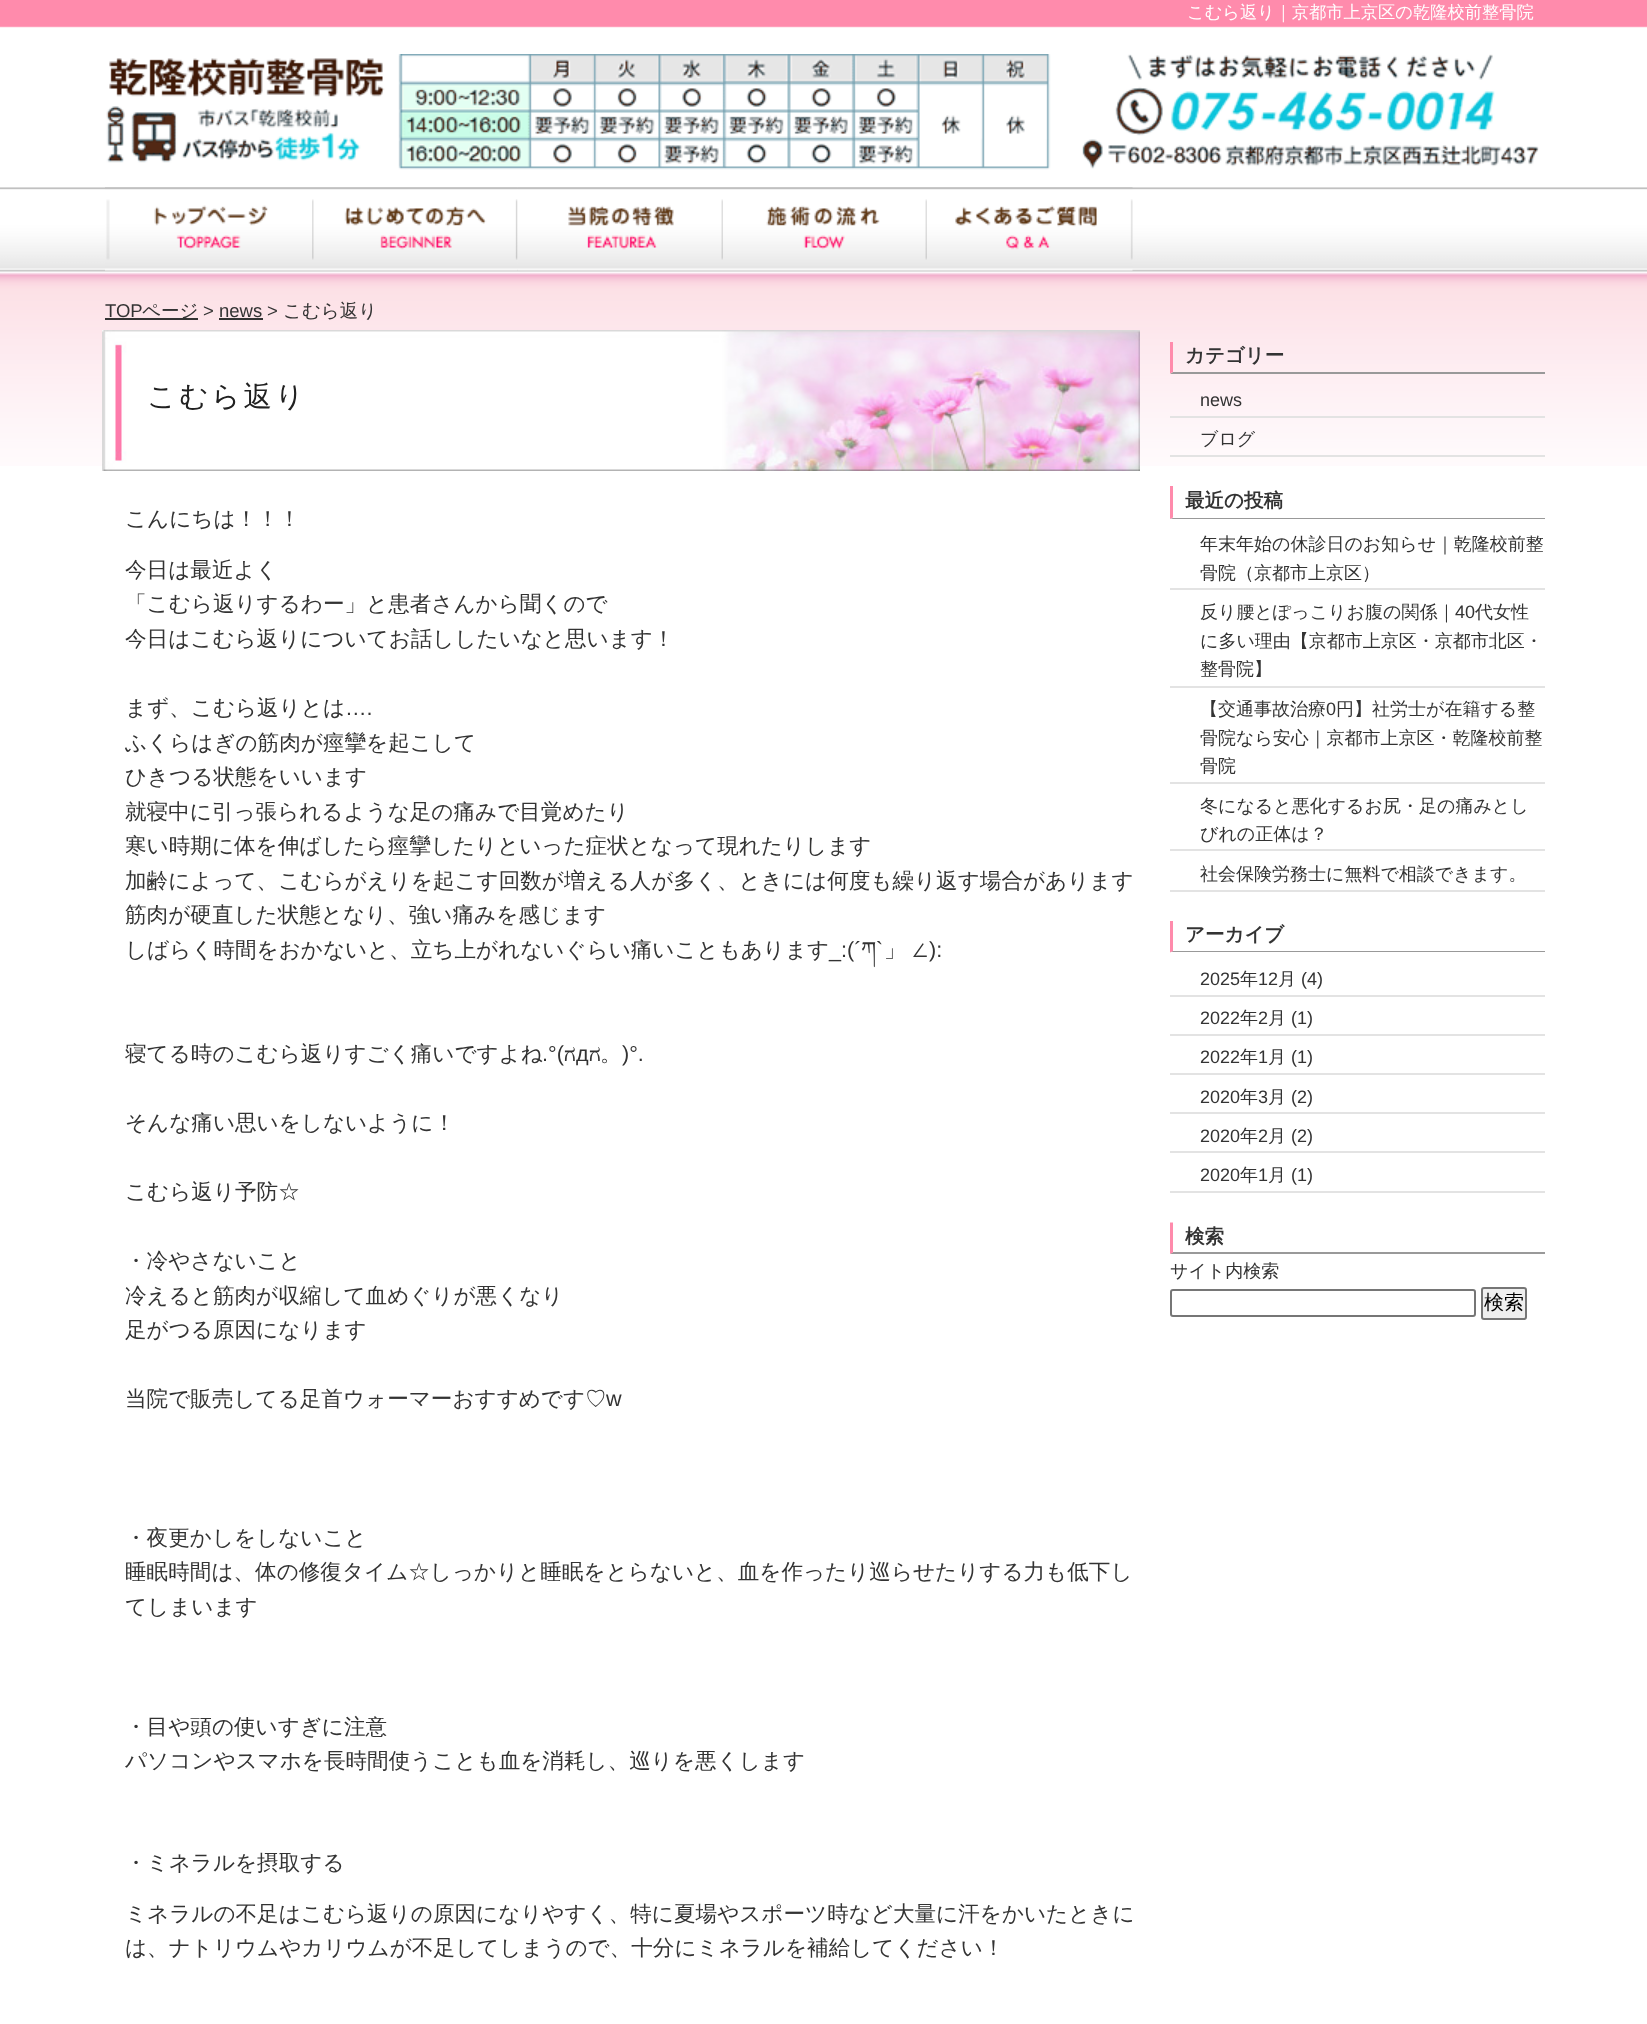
<svg xmlns="http://www.w3.org/2000/svg" width="1647" height="2024" viewBox="0 0 1647 2024">
  <rect width="100%" height="100%" fill="#ffffff"/>
  <image x="0" y="0" width="1647" height="466" href="img1.png"/>
  <text x="1187" y="18" font-family="WenQuanYi Zen Hei" font-size="17.25" font-weight="500" fill="#ffffff">こむら返り｜京都市上京区の乾隆校前整骨院</text>
  <image x="106" y="54" width="1433" height="116" href="img2.png"/>
  <image x="105" y="187" width="207" height="84" href="img3.png"/>
  <image x="312" y="187" width="206" height="84" href="img4.png"/>
  <image x="517" y="187" width="206" height="84" href="img5.png"/>
  <image x="723" y="187" width="204" height="84" href="img6.png"/>
  <image x="927" y="187" width="206" height="84" href="img7.png"/>
  <text x="105" y="317" font-family="Liberation Sans" font-size="18.5" fill="#333333">TOP</text>
  <rect x="105" y="318" width="93" height="2" fill="#333333"/>
  <text x="142" y="317" font-family="WenQuanYi Zen Hei" font-size="18.5" font-weight="500" fill="#333333">ページ</text>
  <text x="203" y="317" font-family="Liberation Sans" font-size="18.5" fill="#333333">&gt;</text>
  <text x="219" y="317" font-family="Liberation Sans" font-size="18.5" fill="#333333">news</text>
  <rect x="219" y="318" width="44" height="2" fill="#333333"/>
  <text x="267" y="317" font-family="Liberation Sans" font-size="18.5" fill="#333333">&gt;</text>
  <text x="283" y="317" font-family="WenQuanYi Zen Hei" font-size="18.5" font-weight="500" fill="#333333">こむら返り</text>
  <image x="102" y="330" width="1038" height="141" href="img8.png"/>
  <text x="147" y="406" font-family="WenQuanYi Zen Hei" font-size="28.5" font-weight="500" letter-spacing="3" fill="#212121">こむら返り</text>
  <text x="125" y="526" font-family="WenQuanYi Zen Hei" font-size="21.6" font-weight="500" fill="#333333">こんにちは！！！</text>
  <text x="125" y="577" font-family="WenQuanYi Zen Hei" font-size="21.6" font-weight="500" fill="#333333">今日は最近よく</text>
  <text x="125" y="611" font-family="WenQuanYi Zen Hei" font-size="21.6" font-weight="500" fill="#333333">「こむら返りするわー」と患者さんから聞くので</text>
  <text x="125" y="646" font-family="WenQuanYi Zen Hei" font-size="21.6" font-weight="500" fill="#333333">今日はこむら返りについてお話ししたいなと思います！</text>
  <text x="125" y="715" font-family="WenQuanYi Zen Hei" font-size="21.6" font-weight="500" fill="#333333">まず、こむら返りとは</text>
  <text x="345" y="715" font-family="Liberation Sans" font-size="21.6" fill="#333333">….</text>
  <text x="125" y="750" font-family="WenQuanYi Zen Hei" font-size="21.6" font-weight="500" fill="#333333">ふくらはぎの筋肉が痙攣を起こして</text>
  <text x="125" y="784" font-family="WenQuanYi Zen Hei" font-size="21.6" font-weight="500" fill="#333333">ひきつる状態をいいます</text>
  <text x="125" y="819" font-family="WenQuanYi Zen Hei" font-size="21.6" font-weight="500" fill="#333333">就寝中に引っ張られるような足の痛みで目覚めたり</text>
  <text x="125" y="853" font-family="WenQuanYi Zen Hei" font-size="21.6" font-weight="500" fill="#333333">寒い時期に体を伸ばしたら痙攣したりといった症状となって現れたりします</text>
  <text x="125" y="888" font-family="WenQuanYi Zen Hei" font-size="21.6" font-weight="500" fill="#333333">加齢によって、こむらがえりを起こす回数が増える人が多く、ときには何度も繰り返す場合があります</text>
  <text x="125" y="922" font-family="WenQuanYi Zen Hei" font-size="21.6" font-weight="500" fill="#333333">筋肉が硬直した状態となり、強い痛みを感じます</text>
  <text x="125" y="957" font-family="WenQuanYi Zen Hei" font-size="21.6" font-weight="500" fill="#333333">しばらく時間をおかないと、立ち上がれないぐらい痛いこともあります</text>
  <text x="829" y="957" font-family="Liberation Sans" font-size="21.6" fill="#333333">_:(´</text>
  <text x="861" y="957" font-family="Noto Serif Tibetan" font-size="21.6" fill="#333333">ཀ</text>
  <text x="876" y="957" font-family="Liberation Sans" font-size="21.6" fill="#333333">`</text>
  <text x="884" y="957" word-spacing="-1" font-family="WenQuanYi Zen Hei" font-size="21.6" font-weight="500" fill="#333333">」 ∠</text>
  <text x="929" y="957" font-family="Liberation Sans" font-size="21.6" fill="#333333">):</text>
  <text x="125" y="1061" font-family="WenQuanYi Zen Hei" font-size="21.6" font-weight="500" fill="#333333">寝てる時のこむら返りすごく痛いですよね</text>
  <text x="542" y="1061" font-family="Liberation Sans" font-size="21.6" fill="#333333">.°(</text>
  <text x="564" y="1061" font-family="FreeSerif" font-size="21.6" fill="#333333">ಗ</text>
  <text x="576" y="1061" font-family="Liberation Sans" font-size="21.6" fill="#333333">д</text>
  <text x="589" y="1061" font-family="FreeSerif" font-size="21.6" fill="#333333">ಗ</text>
  <text x="600" y="1061" font-family="WenQuanYi Zen Hei" font-size="21.6" font-weight="500" fill="#333333">。</text>
  <text x="622" y="1061" font-family="Liberation Sans" font-size="21.6" fill="#333333">)°.</text>
  <text x="125" y="1130" font-family="WenQuanYi Zen Hei" font-size="21.6" font-weight="500" fill="#333333">そんな痛い思いをしないように！</text>
  <text x="125" y="1199" font-family="WenQuanYi Zen Hei" font-size="21.6" font-weight="500" fill="#333333">こむら返り予防☆</text>
  <text x="125" y="1268" font-family="WenQuanYi Zen Hei" font-size="21.6" font-weight="500" fill="#333333">・冷やさないこと</text>
  <text x="125" y="1303" font-family="WenQuanYi Zen Hei" font-size="21.6" font-weight="500" fill="#333333">冷えると筋肉が収縮して血めぐりが悪くなり</text>
  <text x="125" y="1337" font-family="WenQuanYi Zen Hei" font-size="21.6" font-weight="500" fill="#333333">足がつる原因になります</text>
  <text x="125" y="1406" font-family="WenQuanYi Zen Hei" font-size="21.6" font-weight="500" fill="#333333">当院で販売してる足首ウォーマーおすすめです♡</text>
  <text x="606" y="1406" font-family="Liberation Sans" font-size="21.6" fill="#333333">w</text>
  <text x="125" y="1545" font-family="WenQuanYi Zen Hei" font-size="21.6" font-weight="500" fill="#333333">・夜更かしをしないこと</text>
  <text x="125" y="1579" font-family="WenQuanYi Zen Hei" font-size="21.6" font-weight="500" fill="#333333">睡眠時間は、体の修復タイム☆しっかりと睡眠をとらないと、血を作ったり巡らせたりする力も低下し</text>
  <text x="125" y="1614" font-family="WenQuanYi Zen Hei" font-size="21.6" font-weight="500" fill="#333333">てしまいます</text>
  <text x="125" y="1734" font-family="WenQuanYi Zen Hei" font-size="21.6" font-weight="500" fill="#333333">・目や頭の使いすぎに注意</text>
  <text x="125" y="1768" font-family="WenQuanYi Zen Hei" font-size="21.6" font-weight="500" fill="#333333">パソコンやスマホを長時間使うことも血を消耗し、巡りを悪くします</text>
  <text x="125" y="1870" font-family="WenQuanYi Zen Hei" font-size="21.6" font-weight="500" fill="#333333">・ミネラルを摂取する</text>
  <text x="125" y="1921" font-family="WenQuanYi Zen Hei" font-size="21.6" font-weight="500" fill="#333333">ミネラルの不足はこむら返りの原因になりやすく、特に夏場やスポーツ時など大量に汗をかいたときに</text>
  <text x="125" y="1955" font-family="WenQuanYi Zen Hei" font-size="21.6" font-weight="500" fill="#333333">は、ナトリウムやカリウムが不足してしまうので、十分にミネラルを補給してください！</text>
  <path d="M1545 374H1170L1173 372H1545Z" fill="#999999"/>
  <path d="M1170 373.5V342H1173V372Z" fill="#ff8bac"/>
  <text x="1185" y="362" font-family="WenQuanYi Zen Hei" font-size="19.5" font-weight="bold" fill="#333333">カテゴリー</text>
  <rect x="1170" y="416" width="375" height="2" fill="#e3e3e3"/>
  <text x="1200" y="406" font-family="Liberation Sans" font-size="18" fill="#333333">news</text>
  <rect x="1170" y="455" width="375" height="2" fill="#e3e3e3"/>
  <text x="1200" y="445" font-family="WenQuanYi Zen Hei" font-size="18" font-weight="500" fill="#333333">ブログ</text>
  <path d="M1545 519H1170L1173 518H1545Z" fill="#999999"/>
  <path d="M1170 519V486H1173V517.5Z" fill="#ff8bac"/>
  <text x="1185" y="507" font-family="WenQuanYi Zen Hei" font-size="19.5" font-weight="bold" fill="#333333">最近の投稿</text>
  <rect x="1170" y="588" width="375" height="2" fill="#e3e3e3"/>
  <text x="1200" y="550" font-family="WenQuanYi Zen Hei" font-size="18" font-weight="500" fill="#333333">年末年始の休診日のお知らせ｜乾隆校前整</text>
  <text x="1200" y="579" font-family="WenQuanYi Zen Hei" font-size="18" font-weight="500" fill="#333333">骨院（京都市上京区）</text>
  <rect x="1170" y="686" width="375" height="2" fill="#e3e3e3"/>
  <text x="1200" y="618" font-family="WenQuanYi Zen Hei" font-size="18" font-weight="500" fill="#333333">反り腰とぽっこりお腹の関係｜</text>
  <text x="1455" y="618" font-family="Liberation Sans" font-size="18" fill="#333333">40</text>
  <text x="1475" y="618" font-family="WenQuanYi Zen Hei" font-size="18" font-weight="500" fill="#333333">代女性</text>
  <text x="1200" y="647" font-family="WenQuanYi Zen Hei" font-size="18" font-weight="500" fill="#333333">に多い理由【京都市上京区・京都市北区・</text>
  <text x="1200" y="675" font-family="WenQuanYi Zen Hei" font-size="18" font-weight="500" fill="#333333">整骨院】</text>
  <rect x="1170" y="782" width="375" height="2" fill="#e3e3e3"/>
  <text x="1200" y="715" font-family="WenQuanYi Zen Hei" font-size="18" font-weight="500" fill="#333333">【交通事故治療</text>
  <text x="1326" y="715" font-family="Liberation Sans" font-size="18" fill="#333333">0</text>
  <text x="1336" y="715" font-family="WenQuanYi Zen Hei" font-size="18" font-weight="500" fill="#333333">円】社労士が在籍する整</text>
  <text x="1200" y="744" font-family="WenQuanYi Zen Hei" font-size="18" font-weight="500" fill="#333333">骨院なら安心｜京都市上京区・乾隆校前整</text>
  <text x="1200" y="772" font-family="WenQuanYi Zen Hei" font-size="18" font-weight="500" fill="#333333">骨院</text>
  <rect x="1170" y="849" width="375" height="2" fill="#e3e3e3"/>
  <text x="1200" y="812" font-family="WenQuanYi Zen Hei" font-size="18" font-weight="500" fill="#333333">冬になると悪化するお尻・足の痛みとし</text>
  <text x="1200" y="840" font-family="WenQuanYi Zen Hei" font-size="18" font-weight="500" fill="#333333">びれの正体は？</text>
  <rect x="1170" y="890" width="375" height="2" fill="#e3e3e3"/>
  <text x="1200" y="880" font-family="WenQuanYi Zen Hei" font-size="18" font-weight="500" fill="#333333">社会保険労務士に無料で相談できます。</text>
  <path d="M1545 952H1170L1173 951H1545Z" fill="#999999"/>
  <path d="M1170 952.5V921H1173V951Z" fill="#ff8bac"/>
  <text x="1185" y="941" font-family="WenQuanYi Zen Hei" font-size="19.5" font-weight="bold" fill="#333333">アーカイブ</text>
  <rect x="1170" y="995" width="375" height="2" fill="#e3e3e3"/>
  <text x="1200" y="985" font-family="Liberation Sans" font-size="18" fill="#333333">2025</text>
  <text x="1240" y="985" font-family="WenQuanYi Zen Hei" font-size="18" font-weight="500" fill="#333333">年</text>
  <text x="1258" y="985" font-family="Liberation Sans" font-size="18" fill="#333333">12</text>
  <text x="1278" y="985" font-family="WenQuanYi Zen Hei" font-size="18" font-weight="500" fill="#333333">月</text>
  <text x="1301" y="985" font-family="Liberation Sans" font-size="18" fill="#333333">(4)</text>
  <rect x="1170" y="1034" width="375" height="2" fill="#e3e3e3"/>
  <text x="1200" y="1024" font-family="Liberation Sans" font-size="18" fill="#333333">2022</text>
  <text x="1240" y="1024" font-family="WenQuanYi Zen Hei" font-size="18" font-weight="500" fill="#333333">年</text>
  <text x="1258" y="1024" font-family="Liberation Sans" font-size="18" fill="#333333">2</text>
  <text x="1268" y="1024" font-family="WenQuanYi Zen Hei" font-size="18" font-weight="500" fill="#333333">月</text>
  <text x="1291" y="1024" font-family="Liberation Sans" font-size="18" fill="#333333">(1)</text>
  <rect x="1170" y="1073" width="375" height="2" fill="#e3e3e3"/>
  <text x="1200" y="1063" font-family="Liberation Sans" font-size="18" fill="#333333">2022</text>
  <text x="1240" y="1063" font-family="WenQuanYi Zen Hei" font-size="18" font-weight="500" fill="#333333">年</text>
  <text x="1258" y="1063" font-family="Liberation Sans" font-size="18" fill="#333333">1</text>
  <text x="1268" y="1063" font-family="WenQuanYi Zen Hei" font-size="18" font-weight="500" fill="#333333">月</text>
  <text x="1291" y="1063" font-family="Liberation Sans" font-size="18" fill="#333333">(1)</text>
  <rect x="1170" y="1112" width="375" height="2" fill="#e3e3e3"/>
  <text x="1200" y="1103" font-family="Liberation Sans" font-size="18" fill="#333333">2020</text>
  <text x="1240" y="1103" font-family="WenQuanYi Zen Hei" font-size="18" font-weight="500" fill="#333333">年</text>
  <text x="1258" y="1103" font-family="Liberation Sans" font-size="18" fill="#333333">3</text>
  <text x="1268" y="1103" font-family="WenQuanYi Zen Hei" font-size="18" font-weight="500" fill="#333333">月</text>
  <text x="1291" y="1103" font-family="Liberation Sans" font-size="18" fill="#333333">(2)</text>
  <rect x="1170" y="1151" width="375" height="2" fill="#e3e3e3"/>
  <text x="1200" y="1142" font-family="Liberation Sans" font-size="18" fill="#333333">2020</text>
  <text x="1240" y="1142" font-family="WenQuanYi Zen Hei" font-size="18" font-weight="500" fill="#333333">年</text>
  <text x="1258" y="1142" font-family="Liberation Sans" font-size="18" fill="#333333">2</text>
  <text x="1268" y="1142" font-family="WenQuanYi Zen Hei" font-size="18" font-weight="500" fill="#333333">月</text>
  <text x="1291" y="1142" font-family="Liberation Sans" font-size="18" fill="#333333">(2)</text>
  <rect x="1170" y="1191" width="375" height="2" fill="#e3e3e3"/>
  <text x="1200" y="1181" font-family="Liberation Sans" font-size="18" fill="#333333">2020</text>
  <text x="1240" y="1181" font-family="WenQuanYi Zen Hei" font-size="18" font-weight="500" fill="#333333">年</text>
  <text x="1258" y="1181" font-family="Liberation Sans" font-size="18" fill="#333333">1</text>
  <text x="1268" y="1181" font-family="WenQuanYi Zen Hei" font-size="18" font-weight="500" fill="#333333">月</text>
  <text x="1291" y="1181" font-family="Liberation Sans" font-size="18" fill="#333333">(1)</text>
  <path d="M1545 1254H1170L1173 1252H1545Z" fill="#999999"/>
  <path d="M1170 1254V1222.5H1173V1252.5Z" fill="#ff8bac"/>
  <text x="1185" y="1243" font-family="WenQuanYi Zen Hei" font-size="19.5" font-weight="bold" fill="#333333">検索</text>
  <text x="1170" y="1277" font-family="WenQuanYi Zen Hei" font-size="18" font-weight="500" fill="#333333">サイト内検索</text>
  <rect x="1171" y="1290" width="304" height="26" rx="2" fill="none" stroke="#767676" stroke-width="2"/>
  <rect x="1482" y="1288" width="44" height="31" rx="2" fill="#efefef" stroke="#767676" stroke-width="2"/>
  <text x="1484" y="1309" font-family="WenQuanYi Zen Hei" font-size="20" font-weight="500" fill="#000000">検索</text>
</svg>
